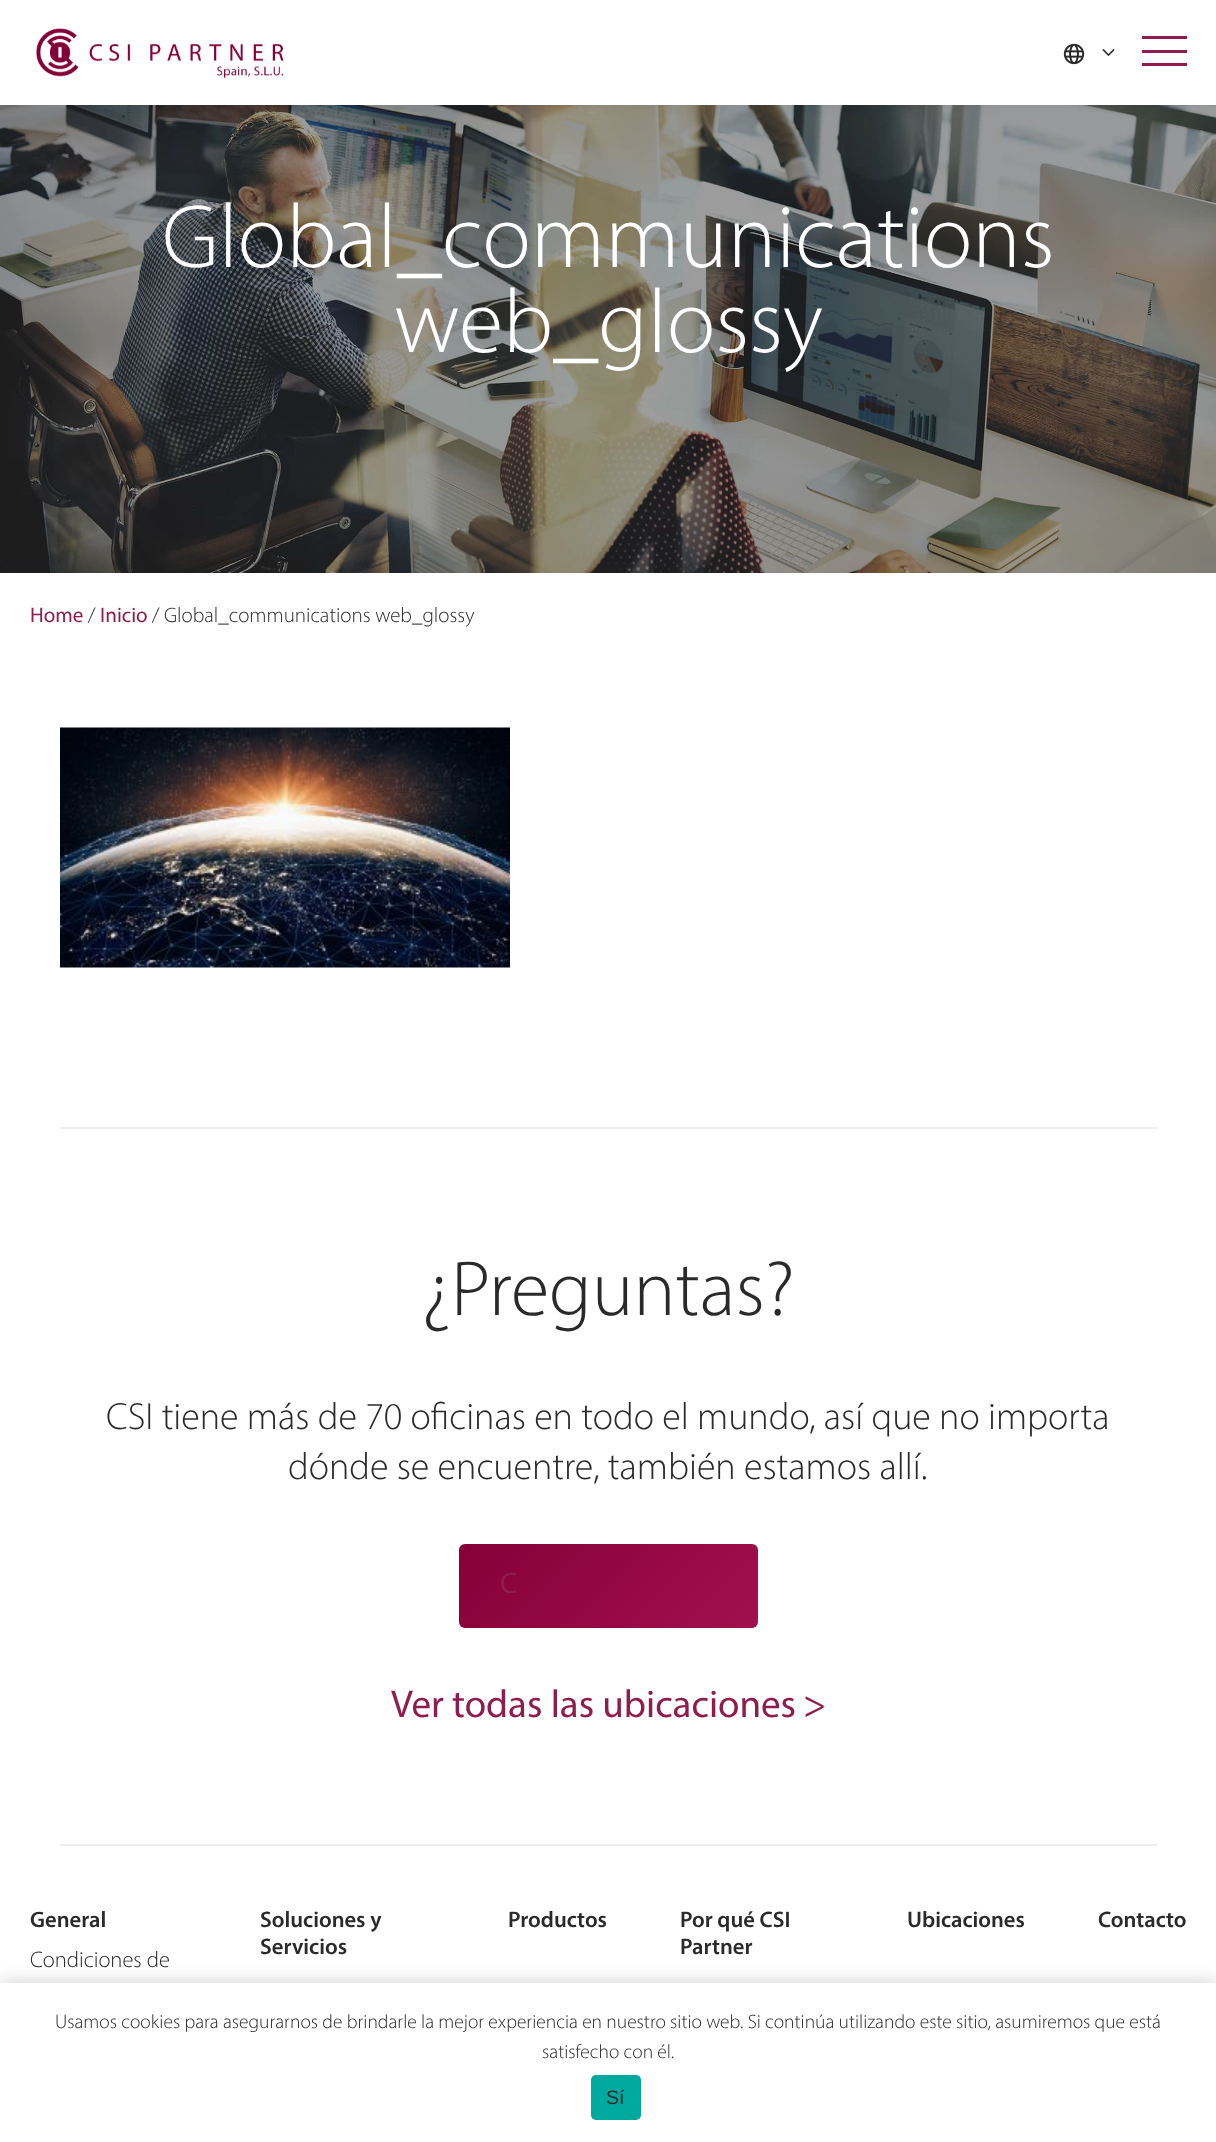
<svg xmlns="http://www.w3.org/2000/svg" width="1216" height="2142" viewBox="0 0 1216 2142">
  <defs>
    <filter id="blur1" x="-50%" y="-200%" width="200%" height="500%"><feGaussianBlur stdDeviation="7.5"/></filter>
    <linearGradient id="g1" gradientUnits="userSpaceOnUse" x1="513" y1="1490" x2="704" y2="1681"><stop offset="0" stop-color="#860038"/><stop offset="1" stop-color="#a1104d"/></linearGradient>
    <filter id="blur2" x="-50%" y="-200%" width="200%" height="500%"><feGaussianBlur stdDeviation="9"/></filter>
  </defs>
  <rect width="100%" height="100%" fill="#ffffff"/>
  <image x="0" y="105" width="1216" height="468" href="img4.png"/>
  <rect x="3" y="3" width="1211" height="99" fill="#000000" fill-opacity="0.1" filter="url(#blur1)"/>
  <rect x="0" y="0" width="1216" height="105" fill="#ffffff"/>
  <image x="36" y="28" width="248" height="50" href="img1.png"/>
  <rect x="1142" y="36" width="45" height="3" fill="#901c4d"/>
  <rect x="1142" y="50" width="45" height="3" fill="#901c4d"/>
  <rect x="1142" y="63" width="45" height="3" fill="#901c4d"/>
  <image x="1063" y="43" width="22" height="22" href="img2.png"/>
  <image x="1102" y="49" width="13" height="7" href="img3.png"/>
  <text x="162" y="267" font-family="Myriad" font-size="90.75" font-weight="300" fill="#ffffff">Global_communications</text>
  <text x="394" y="352" font-family="Myriad" font-size="90.75" font-weight="300" fill="#ffffff">web_glossy</text>
  <text x="30" y="622" font-family="Myriad" font-size="21" fill="#901c4d">Home</text>
  <text x="88" y="622" font-family="Myriad" font-size="21" font-weight="300" fill="#2a2a2a">/</text>
  <text x="100" y="622" font-family="Myriad" font-size="21" fill="#901c4d">Inicio</text>
  <text x="152" y="622" font-family="Myriad" font-size="21" font-weight="300" fill="#2a2a2a">/ Global_communications web_glossy</text>
  <image x="60" y="727" width="450" height="241" href="img5.png"/>
  <rect x="60" y="1127" width="1097" height="2" fill="#eeeeee"/>
  <text x="421" y="1315" font-family="Myriad" font-size="78.5" font-weight="300" fill="#2a2a2a">¿Preguntas?</text>
  <text x="106" y="1429" font-family="Myriad" font-size="38" font-weight="300" fill="#2a2a2a">CSI tiene más de 70 oficinas en todo el mundo, así que no importa</text>
  <text x="288" y="1479" font-family="Myriad" font-size="38" font-weight="300" fill="#2a2a2a">dónde se encuentre, también estamos allí.</text>
  <rect x="459" y="1544" width="299" height="84" rx="6" fill="url(#g1)"/>
  <text x="500" y="1593" font-family="Myriad" font-size="30" letter-spacing="2" fill="#901c4d">C</text>
  <text x="391" y="1717" font-family="Myriad" font-size="39" fill="#901c4d">Ver todas las ubicaciones</text>
  <text x="803" y="1717" font-family="Myriad" font-size="39" fill="#901c4d">&gt;</text>
  <rect x="60" y="1844" width="1097" height="2" fill="#eeeeee"/>
  <text x="30" y="1927" font-family="Myriad" font-size="22.5" font-weight="600" fill="#2a2a2a">General</text>
  <text x="30" y="1967" font-family="Myriad" font-size="22.5" font-weight="300" fill="#2a2a2a">Condiciones de</text>
  <text x="260" y="1927" font-family="Myriad" font-size="22.5" font-weight="600" fill="#2a2a2a">Soluciones y</text>
  <text x="260" y="1954" font-family="Myriad" font-size="22.5" font-weight="600" fill="#2a2a2a">Servicios</text>
  <text x="508" y="1927" font-family="Myriad" font-size="22.5" font-weight="600" fill="#2a2a2a">Productos</text>
  <text x="680" y="1927" font-family="Myriad" font-size="22.5" font-weight="600" fill="#2a2a2a">Por qué CSI</text>
  <text x="680" y="1954" font-family="Myriad" font-size="22.5" font-weight="600" fill="#2a2a2a">Partner</text>
  <text x="907" y="1927" font-family="Myriad" font-size="22.5" font-weight="600" fill="#2a2a2a">Ubicaciones</text>
  <text x="1098" y="1927" font-family="Myriad" font-size="22.5" font-weight="600" fill="#2a2a2a">Contacto</text>
  <rect x="0" y="1983" width="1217" height="159" fill="#000000" fill-opacity="0.2" filter="url(#blur2)"/>
  <rect x="0" y="1983" width="1216" height="159" fill="#ffffff"/>
  <text x="55" y="2028" font-family="Myriad" font-size="19.5" font-weight="300" fill="#2a2a2a">Usamos cookies para asegurarnos de brindarle la mejor experiencia en nuestro sitio web. Si continúa utilizando este sitio, asumiremos que está</text>
  <text x="542" y="2058" font-family="Myriad" font-size="19.5" font-weight="300" fill="#2a2a2a">satisfecho con él.</text>
  <rect x="591" y="2075" width="50" height="45" rx="5" fill="#00a99d"/>
  <text x="606" y="2104" font-family="Liberation Sans" font-size="19.5" fill="#2a2a2a">Sí</text>
</svg>
